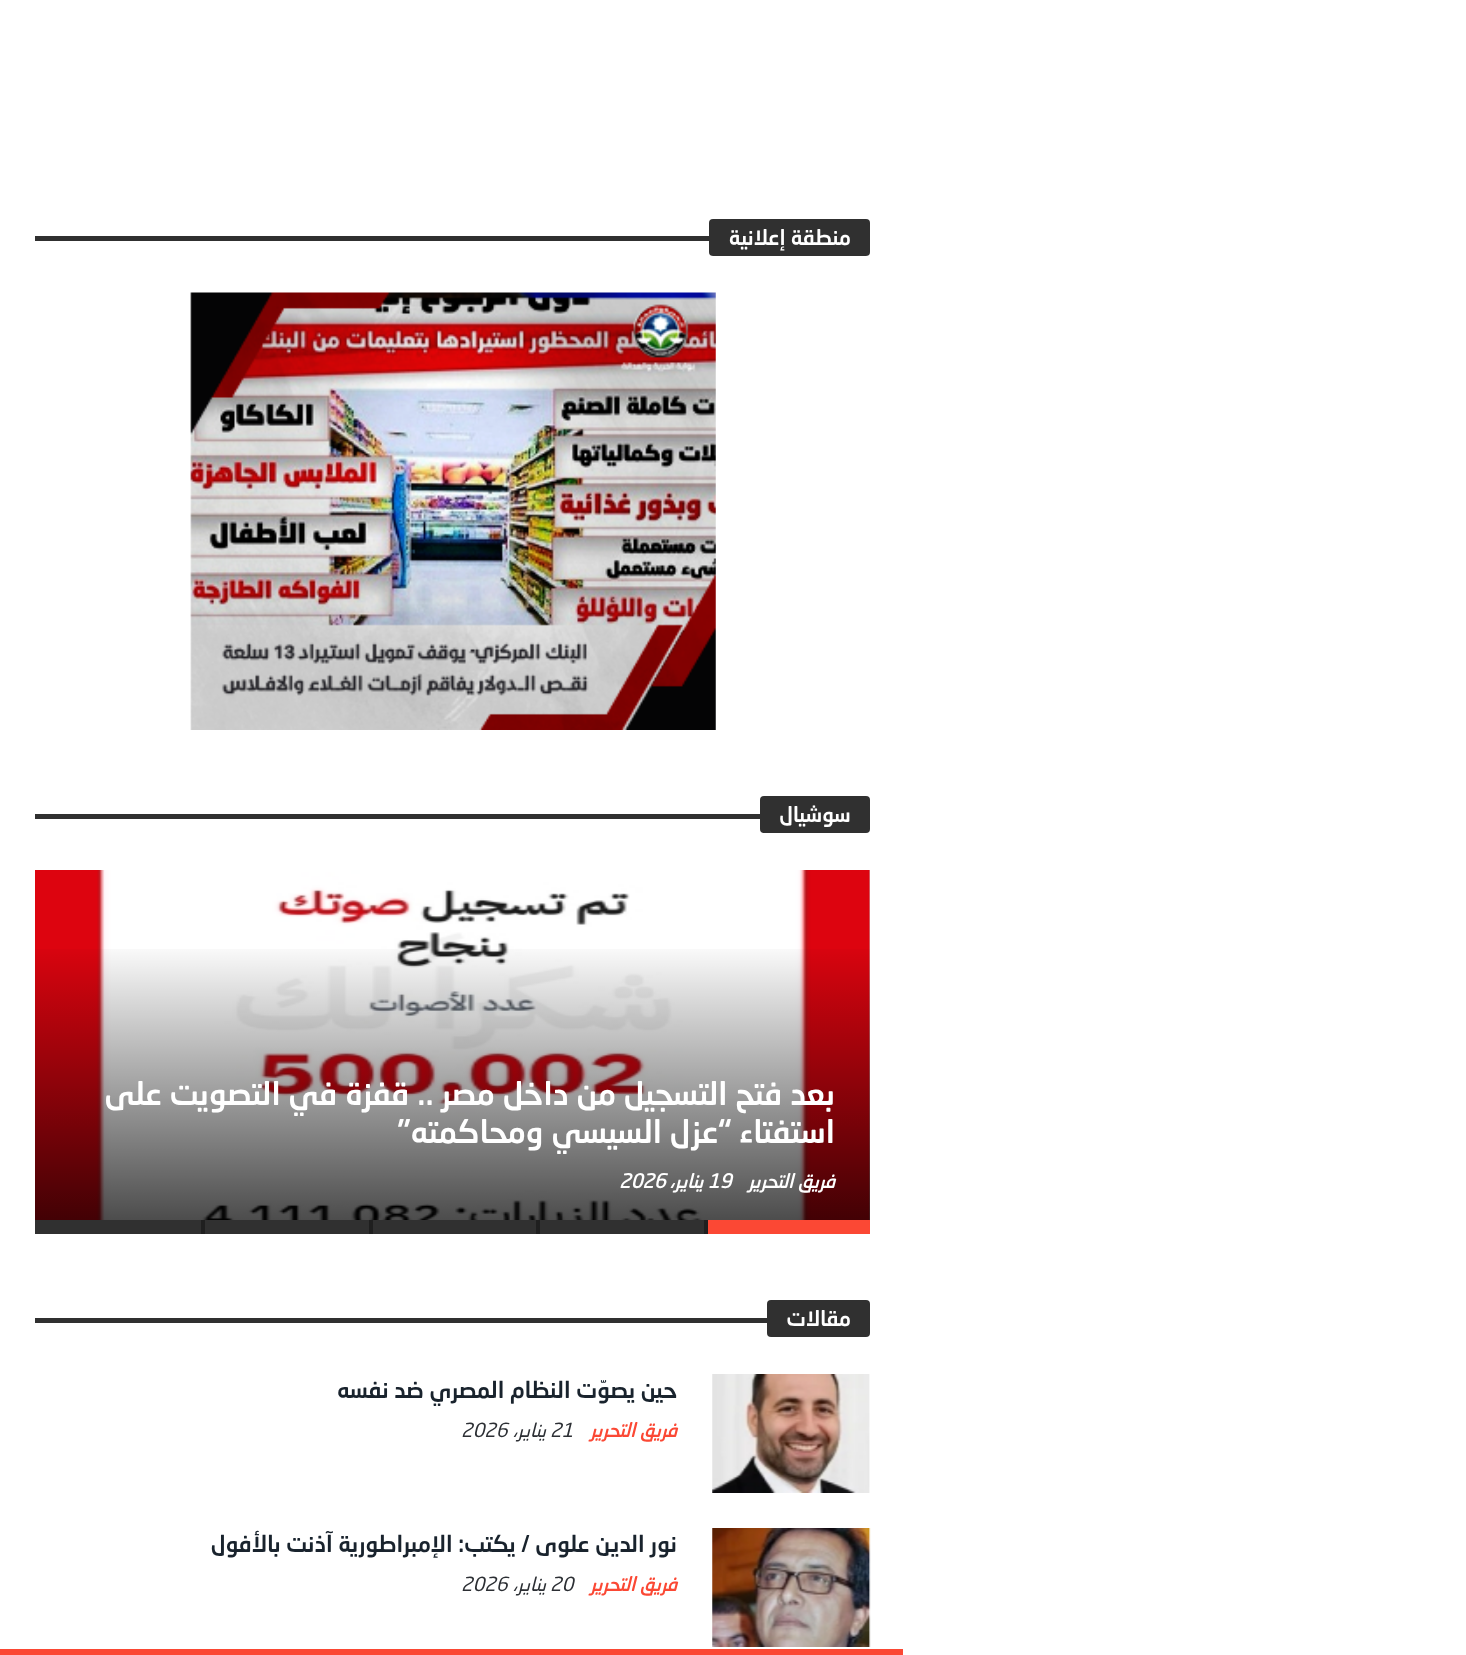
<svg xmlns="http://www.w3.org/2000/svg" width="1466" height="1655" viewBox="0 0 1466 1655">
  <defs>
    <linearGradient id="g1" gradientUnits="userSpaceOnUse" x1="452" y1="940" x2="452" y2="1220"><stop offset="0" stop-color="#000000" stop-opacity="0"/><stop offset="1" stop-color="#000000" stop-opacity="0.7"/></linearGradient>
  </defs>
  <rect width="100%" height="100%" fill="#ffffff"/>
  <rect x="35" y="236" width="674" height="5" fill="#303030"/>
  <rect x="709" y="219" width="161" height="37" rx="4" fill="#303030"/>
  <text x="851" y="245" font-family="'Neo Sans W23'" font-size="21" font-weight="500" direction="rtl" fill="#ffffff">منطقة إعلانية</text>
  <image x="190" y="292" width="526" height="438" href="img1.png"/>
  <rect x="35" y="814" width="725" height="5" fill="#303030"/>
  <rect x="760" y="796" width="110" height="37" rx="4" fill="#303030"/>
  <text x="851" y="822" font-family="'Neo Sans W23'" font-size="21" font-weight="500" direction="rtl" fill="#ffffff">سوشيال</text>
  <rect x="869" y="870" width="1" height="350" fill="#cccccc"/>
  <image x="35" y="870" width="835" height="350" href="img2.png"/>
  <rect x="35" y="949" width="835" height="271" fill="url(#g1)"/>
  <text x="835" y="1105" font-family="'Neo Sans W23'" font-size="31.5" font-weight="500" direction="rtl" fill="#ffffff">بعد فتح التسجيل من داخل مصر .. قفزة في التصويت على</text>
  <text x="835" y="1143" font-family="'Neo Sans W23'" font-size="31.5" font-weight="500" direction="rtl" fill="#ffffff">استفتاء “عزل السيسي ومحاكمته”</text>
  <text x="835" y="1188" font-family="'Neo Sans W23'" font-size="19.25" font-weight="bold" font-style="italic" direction="rtl" fill="#ffffff">فريق التحرير</text>
  <text x="708" y="1188" font-family="'Neo Sans W23'" font-size="19.25" font-weight="bold" font-style="italic" fill="#ffffff">19</text>
  <text x="703" y="1188" font-family="'Neo Sans W23'" font-size="19.25" font-weight="bold" font-style="italic" direction="rtl" fill="#ffffff">يناير،</text>
  <text x="619" y="1188" font-family="'Neo Sans W23'" font-size="19.25" font-weight="bold" font-style="italic" fill="#ffffff">2026</text>
  <rect x="708" y="1220" width="162" height="14" fill="#fb4834"/>
  <rect x="704" y="1220" width="4" height="14" fill="#1f1f1f"/>
  <rect x="540" y="1220" width="164" height="14" fill="#303030"/>
  <rect x="536" y="1220" width="4" height="14" fill="#1f1f1f"/>
  <rect x="373" y="1220" width="163" height="14" fill="#303030"/>
  <rect x="369" y="1220" width="4" height="14" fill="#1f1f1f"/>
  <rect x="205" y="1220" width="164" height="14" fill="#303030"/>
  <rect x="201" y="1220" width="4" height="14" fill="#1f1f1f"/>
  <rect x="35" y="1220" width="166" height="14" fill="#303030"/>
  <rect x="35" y="1318" width="732" height="5" fill="#303030"/>
  <rect x="767" y="1300" width="103" height="37" rx="4" fill="#303030"/>
  <text x="851" y="1326" font-family="'Neo Sans W23'" font-size="21" font-weight="500" direction="rtl" fill="#ffffff">مقالات</text>
  <image x="712" y="1374" width="158" height="119" href="img3.png"/>
  <text x="677" y="1398" font-family="'Neo Sans W23'" font-size="22.75" font-weight="500" direction="rtl" fill="#19232d">حين يصوّت النظام المصري ضد نفسه</text>
  <text x="677" y="1437" font-family="'Neo Sans W23'" font-size="19.25" font-weight="bold" font-style="italic" direction="rtl" fill="#fb4834">فريق التحرير</text>
  <text x="550" y="1437" font-family="'Neo Sans W23'" font-size="19.25" font-style="italic" fill="#2c2f34">21</text>
  <text x="546" y="1437" font-family="'Neo Sans W23'" font-size="19.25" font-style="italic" direction="rtl" fill="#2c2f34">يناير،</text>
  <text x="461" y="1437" font-family="'Neo Sans W23'" font-size="19.25" font-style="italic" fill="#2c2f34">2026</text>
  <image x="712" y="1528" width="159" height="119" href="img4.png"/>
  <text x="677" y="1552" font-family="'Neo Sans W23'" font-size="22.75" font-weight="500" direction="rtl" fill="#19232d">نور الدين علوى / يكتب: الإمبراطورية آذنت بالأفول</text>
  <text x="677" y="1591" font-family="'Neo Sans W23'" font-size="19.25" font-weight="bold" font-style="italic" direction="rtl" fill="#fb4834">فريق التحرير</text>
  <text x="550" y="1591" font-family="'Neo Sans W23'" font-size="19.25" font-style="italic" fill="#2c2f34">20</text>
  <text x="546" y="1591" font-family="'Neo Sans W23'" font-size="19.25" font-style="italic" direction="rtl" fill="#2c2f34">يناير،</text>
  <text x="461" y="1591" font-family="'Neo Sans W23'" font-size="19.25" font-style="italic" fill="#2c2f34">2026</text>
  <rect x="0" y="1649" width="903" height="6" fill="#fb4834"/>
</svg>
